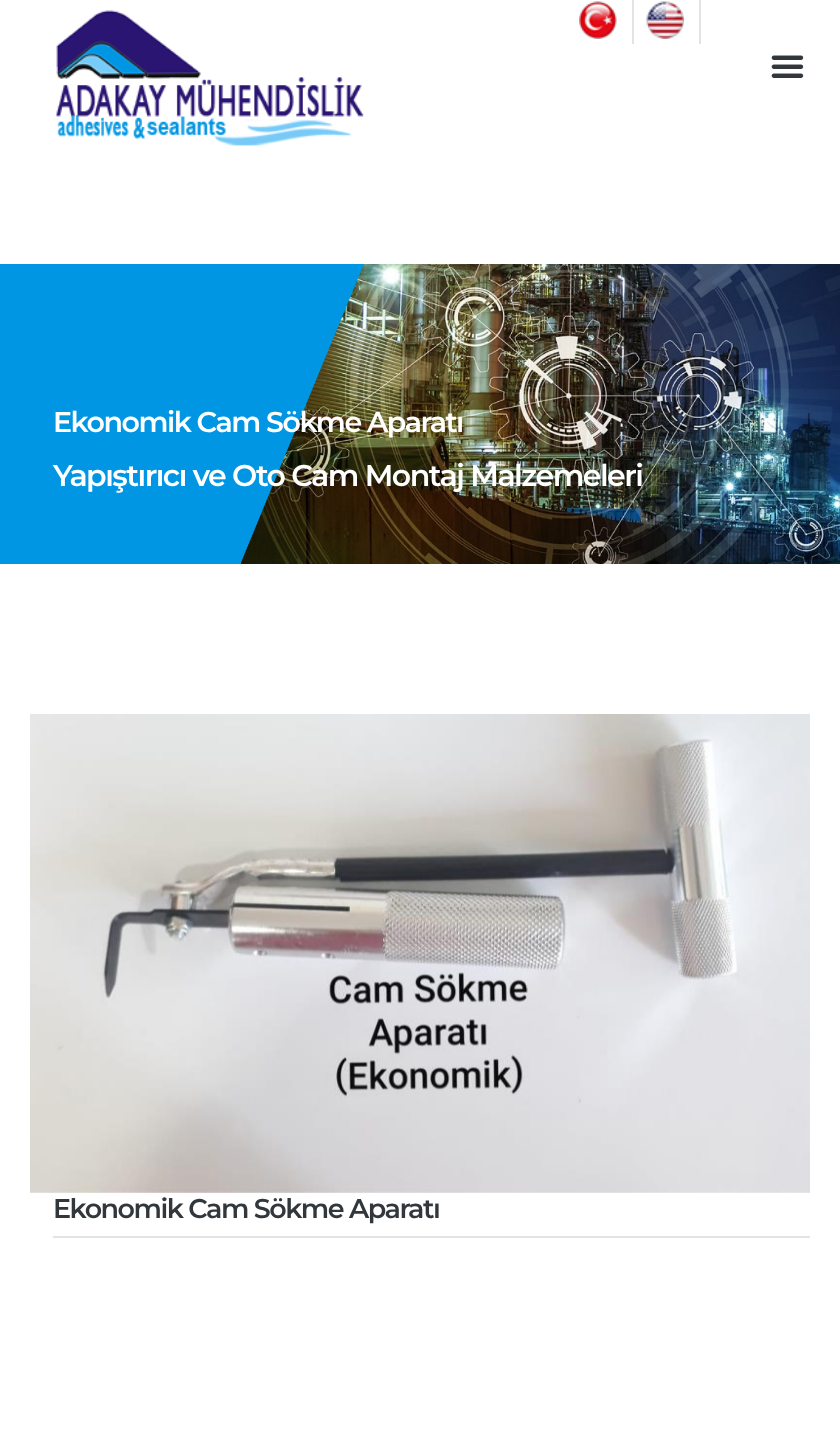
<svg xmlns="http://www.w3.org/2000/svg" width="840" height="1437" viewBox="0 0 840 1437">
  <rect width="100%" height="100%" fill="#ffffff"/>
  <rect x="632" y="0" width="2" height="44" fill="#e1e3e5"/>
  <image x="579" y="1" width="38" height="38" href="img1.png"/>
  <rect x="699" y="0" width="2" height="44" fill="#e1e3e5"/>
  <image x="646" y="1" width="38" height="38" href="img2.png"/>
  <image x="56" y="10" width="308" height="136" href="img3.png"/>
  <image x="771" y="55" width="33" height="23" href="img4.png"/>
  <rect x="0" y="264" width="364" height="300" fill="#0096e3"/>
  <image x="241" y="264" width="599" height="300" href="img5.png"/>
  <text x="53" y="432" font-family="Montserrat" font-size="28.5" font-weight="600" letter-spacing="-1.5" fill="#ffffff">Ekonomik Cam Sökme Aparatı</text>
  <text x="53" y="486" font-family="Montserrat" font-size="30" font-weight="600" letter-spacing="-1.5" fill="#ffffff">Yapıştırıcı ve Oto Cam Montaj Malzemeleri</text>
  <image x="30" y="714" width="780" height="479" href="img6.png"/>
  <text x="53" y="1218" font-family="Montserrat" font-size="27" font-weight="600" letter-spacing="-1.5" fill="#32373c">Ekonomik Cam Sökme Aparatı</text>
  <rect x="53" y="1236" width="757" height="2" fill="#e1e3e5"/>
</svg>
